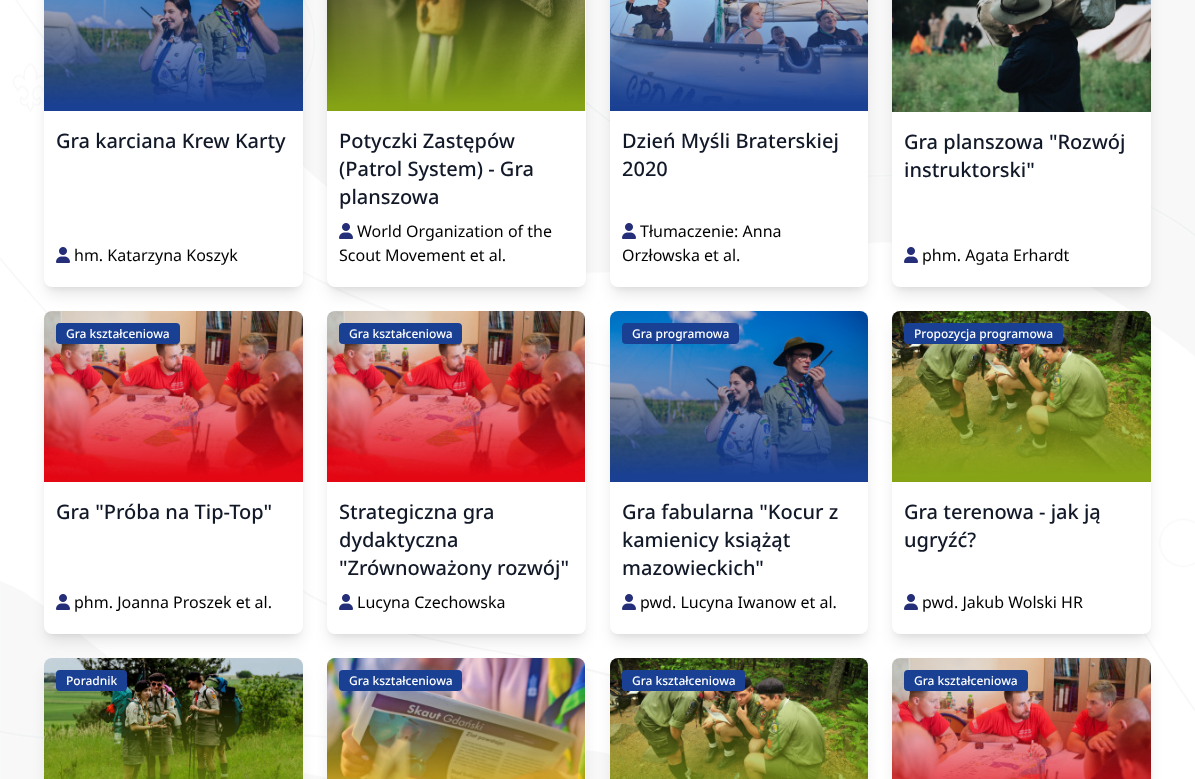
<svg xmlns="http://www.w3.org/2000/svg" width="1195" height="779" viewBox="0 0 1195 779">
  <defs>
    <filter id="blur1" x="-50%" y="-200%" width="200%" height="500%"><feGaussianBlur stdDeviation="3"/></filter>
    <filter id="blur2" x="-50%" y="-200%" width="200%" height="500%"><feGaussianBlur stdDeviation="7.5"/></filter>
  </defs>
  <rect width="100%" height="100%" fill="#ffffff"/>
  <image x="0" y="0" width="1195" height="779" href="img1.png"/>
  <rect x="48" y="-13" width="251" height="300" rx="4" fill="#000000" fill-opacity="0.1" filter="url(#blur1)"/>
  <rect x="47" y="-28" width="253" height="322" rx="5" fill="#000000" fill-opacity="0.1" filter="url(#blur2)"/>
  <rect x="44" y="-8" width="259" height="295" rx="8" fill="#ffffff"/>
  <image x="44" y="0" width="259" height="111" href="img2.png"/>
  <text x="56" y="148" font-family="Noto Sans" font-size="20" font-weight="500" fill="#111827">Gra karciana Krew Karty</text>
  <image x="56" y="247" width="14" height="16" href="img3.png"/>
  <text x="74" y="261" font-family="Noto Sans" font-size="16" fill="#000000">hm. Katarzyna Koszyk</text>
  <rect x="331" y="-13" width="251" height="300" rx="4" fill="#000000" fill-opacity="0.1" filter="url(#blur1)"/>
  <rect x="330" y="-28" width="253" height="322" rx="5" fill="#000000" fill-opacity="0.1" filter="url(#blur2)"/>
  <rect x="327" y="-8" width="259" height="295" rx="8" fill="#ffffff"/>
  <image x="327" y="0" width="258" height="111" href="img4.png"/>
  <text x="339" y="148" font-family="Noto Sans" font-size="20" font-weight="500" fill="#111827">Potyczki Zastępów</text>
  <text x="339" y="176" font-family="Noto Sans" font-size="20" font-weight="500" fill="#111827">(Patrol System) - Gra</text>
  <text x="339" y="204" font-family="Noto Sans" font-size="20" font-weight="500" fill="#111827">planszowa</text>
  <image x="339" y="223" width="14" height="16" href="img3.png"/>
  <text x="357" y="237" font-family="Noto Sans" font-size="16" fill="#000000">World Organization of the</text>
  <text x="339" y="261" font-family="Noto Sans" font-size="16" fill="#000000">Scout Movement et al.</text>
  <rect x="614" y="-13" width="250" height="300" rx="4" fill="#000000" fill-opacity="0.1" filter="url(#blur1)"/>
  <rect x="613" y="-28" width="252" height="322" rx="5" fill="#000000" fill-opacity="0.1" filter="url(#blur2)"/>
  <rect x="610" y="-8" width="258" height="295" rx="8" fill="#ffffff"/>
  <image x="610" y="0" width="258" height="111" href="img5.png"/>
  <text x="622" y="148" font-family="Noto Sans" font-size="20" font-weight="500" fill="#111827">Dzień Myśli Braterskiej</text>
  <text x="622" y="176" font-family="Noto Sans" font-size="20" font-weight="500" fill="#111827">2020</text>
  <image x="622" y="223" width="14" height="16" href="img3.png"/>
  <text x="640" y="237" font-family="Noto Sans" font-size="16" fill="#000000">Tłumaczenie: Anna</text>
  <text x="622" y="261" font-family="Noto Sans" font-size="16" fill="#000000">Orzłowska et al.</text>
  <rect x="896" y="-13" width="251" height="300" rx="4" fill="#000000" fill-opacity="0.1" filter="url(#blur1)"/>
  <rect x="895" y="-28" width="253" height="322" rx="5" fill="#000000" fill-opacity="0.1" filter="url(#blur2)"/>
  <rect x="892" y="-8" width="259" height="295" rx="8" fill="#ffffff"/>
  <image x="892" y="0" width="259" height="112" href="img6.png"/>
  <text x="904" y="149" font-family="Noto Sans" font-size="20" font-weight="500" fill="#111827">Gra planszowa "Rozwój</text>
  <text x="904" y="177" font-family="Noto Sans" font-size="20" font-weight="500" fill="#111827">instruktorski"</text>
  <image x="904" y="247" width="14" height="16" href="img3.png"/>
  <text x="922" y="261" font-family="Noto Sans" font-size="16" fill="#000000">phm. Agata Erhardt</text>
  <rect x="48" y="319" width="251" height="315" rx="4" fill="#000000" fill-opacity="0.1" filter="url(#blur1)"/>
  <rect x="47" y="324" width="253" height="317" rx="5" fill="#000000" fill-opacity="0.1" filter="url(#blur2)"/>
  <rect x="44" y="311" width="259" height="323" rx="8" fill="#ffffff"/>
  <image x="44" y="311" width="259" height="171" href="img7.png"/>
  <rect x="56" y="323" width="124" height="21" rx="4" fill="#194093"/>
  <text x="66" y="338" font-family="Noto Sans" font-size="12" font-weight="500" fill="#ffffff">Gra kształceniowa</text>
  <text x="56" y="519" font-family="Noto Sans" font-size="20" font-weight="500" fill="#111827">Gra "Próba na Tip-Top"</text>
  <image x="56" y="594" width="14" height="16" href="img3.png"/>
  <text x="74" y="608" font-family="Noto Sans" font-size="16" fill="#000000">phm. Joanna Proszek et al.</text>
  <rect x="331" y="319" width="251" height="315" rx="4" fill="#000000" fill-opacity="0.1" filter="url(#blur1)"/>
  <rect x="330" y="324" width="253" height="317" rx="5" fill="#000000" fill-opacity="0.1" filter="url(#blur2)"/>
  <rect x="327" y="311" width="259" height="323" rx="8" fill="#ffffff"/>
  <image x="327" y="311" width="258" height="171" href="img8.png"/>
  <rect x="339" y="323" width="123" height="21" rx="4" fill="#194093"/>
  <text x="349" y="338" font-family="Noto Sans" font-size="12" font-weight="500" fill="#ffffff">Gra kształceniowa</text>
  <text x="339" y="519" font-family="Noto Sans" font-size="20" font-weight="500" fill="#111827">Strategiczna gra</text>
  <text x="339" y="547" font-family="Noto Sans" font-size="20" font-weight="500" fill="#111827">dydaktyczna</text>
  <text x="339" y="575" font-family="Noto Sans" font-size="20" font-weight="500" fill="#111827">"Zrównoważony rozwój"</text>
  <image x="339" y="594" width="14" height="16" href="img3.png"/>
  <text x="357" y="608" font-family="Noto Sans" font-size="16" fill="#000000">Lucyna Czechowska</text>
  <rect x="614" y="319" width="250" height="315" rx="4" fill="#000000" fill-opacity="0.1" filter="url(#blur1)"/>
  <rect x="613" y="324" width="252" height="317" rx="5" fill="#000000" fill-opacity="0.1" filter="url(#blur2)"/>
  <rect x="610" y="311" width="258" height="323" rx="8" fill="#ffffff"/>
  <image x="610" y="311" width="258" height="171" href="img9.png"/>
  <rect x="622" y="323" width="117" height="21" rx="4" fill="#194093"/>
  <text x="632" y="338" font-family="Noto Sans" font-size="12" font-weight="500" fill="#ffffff">Gra programowa</text>
  <text x="622" y="519" font-family="Noto Sans" font-size="20" font-weight="500" fill="#111827">Gra fabularna "Kocur z</text>
  <text x="622" y="547" font-family="Noto Sans" font-size="20" font-weight="500" fill="#111827">kamienicy książąt</text>
  <text x="622" y="575" font-family="Noto Sans" font-size="20" font-weight="500" fill="#111827">mazowieckich"</text>
  <image x="622" y="594" width="14" height="16" href="img3.png"/>
  <text x="640" y="608" font-family="Noto Sans" font-size="16" fill="#000000">pwd. Lucyna Iwanow et al.</text>
  <rect x="896" y="319" width="251" height="315" rx="4" fill="#000000" fill-opacity="0.1" filter="url(#blur1)"/>
  <rect x="895" y="324" width="253" height="317" rx="5" fill="#000000" fill-opacity="0.1" filter="url(#blur2)"/>
  <rect x="892" y="311" width="259" height="323" rx="8" fill="#ffffff"/>
  <image x="892" y="311" width="259" height="171" href="img10.png"/>
  <rect x="904" y="323" width="159" height="21" rx="4" fill="#194093"/>
  <text x="914" y="338" font-family="Noto Sans" font-size="12" font-weight="500" fill="#ffffff">Propozycja programowa</text>
  <text x="904" y="519" font-family="Noto Sans" font-size="20" font-weight="500" fill="#111827">Gra terenowa - jak ją</text>
  <text x="904" y="547" font-family="Noto Sans" font-size="20" font-weight="500" fill="#111827">ugryźć?</text>
  <image x="904" y="594" width="14" height="16" href="img3.png"/>
  <text x="922" y="608" font-family="Noto Sans" font-size="16" fill="#000000">pwd. Jakub Wolski HR</text>
  <rect x="47" y="671" width="253" height="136" rx="5" fill="#000000" fill-opacity="0.1" filter="url(#blur2)"/>
  <image x="44" y="658" width="259" height="121" href="img11.png"/>
  <rect x="56" y="670" width="71" height="21" rx="4" fill="#194093"/>
  <text x="66" y="685" font-family="Noto Sans" font-size="12" font-weight="500" fill="#ffffff">Poradnik</text>
  <rect x="330" y="671" width="253" height="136" rx="5" fill="#000000" fill-opacity="0.1" filter="url(#blur2)"/>
  <rect x="327" y="658" width="259" height="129" rx="8" fill="#ffffff"/>
  <image x="327" y="658" width="258" height="121" href="img12.png"/>
  <rect x="339" y="670" width="123" height="21" rx="4" fill="#194093"/>
  <text x="349" y="685" font-family="Noto Sans" font-size="12" font-weight="500" fill="#ffffff">Gra kształceniowa</text>
  <rect x="613" y="671" width="252" height="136" rx="5" fill="#000000" fill-opacity="0.1" filter="url(#blur2)"/>
  <image x="610" y="658" width="258" height="121" href="img13.png"/>
  <rect x="622" y="670" width="123" height="21" rx="4" fill="#194093"/>
  <text x="632" y="685" font-family="Noto Sans" font-size="12" font-weight="500" fill="#ffffff">Gra kształceniowa</text>
  <rect x="895" y="671" width="253" height="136" rx="5" fill="#000000" fill-opacity="0.1" filter="url(#blur2)"/>
  <image x="892" y="658" width="259" height="121" href="img14.png"/>
  <rect x="904" y="670" width="124" height="21" rx="4" fill="#194093"/>
  <text x="914" y="685" font-family="Noto Sans" font-size="12" font-weight="500" fill="#ffffff">Gra kształceniowa</text>
</svg>
